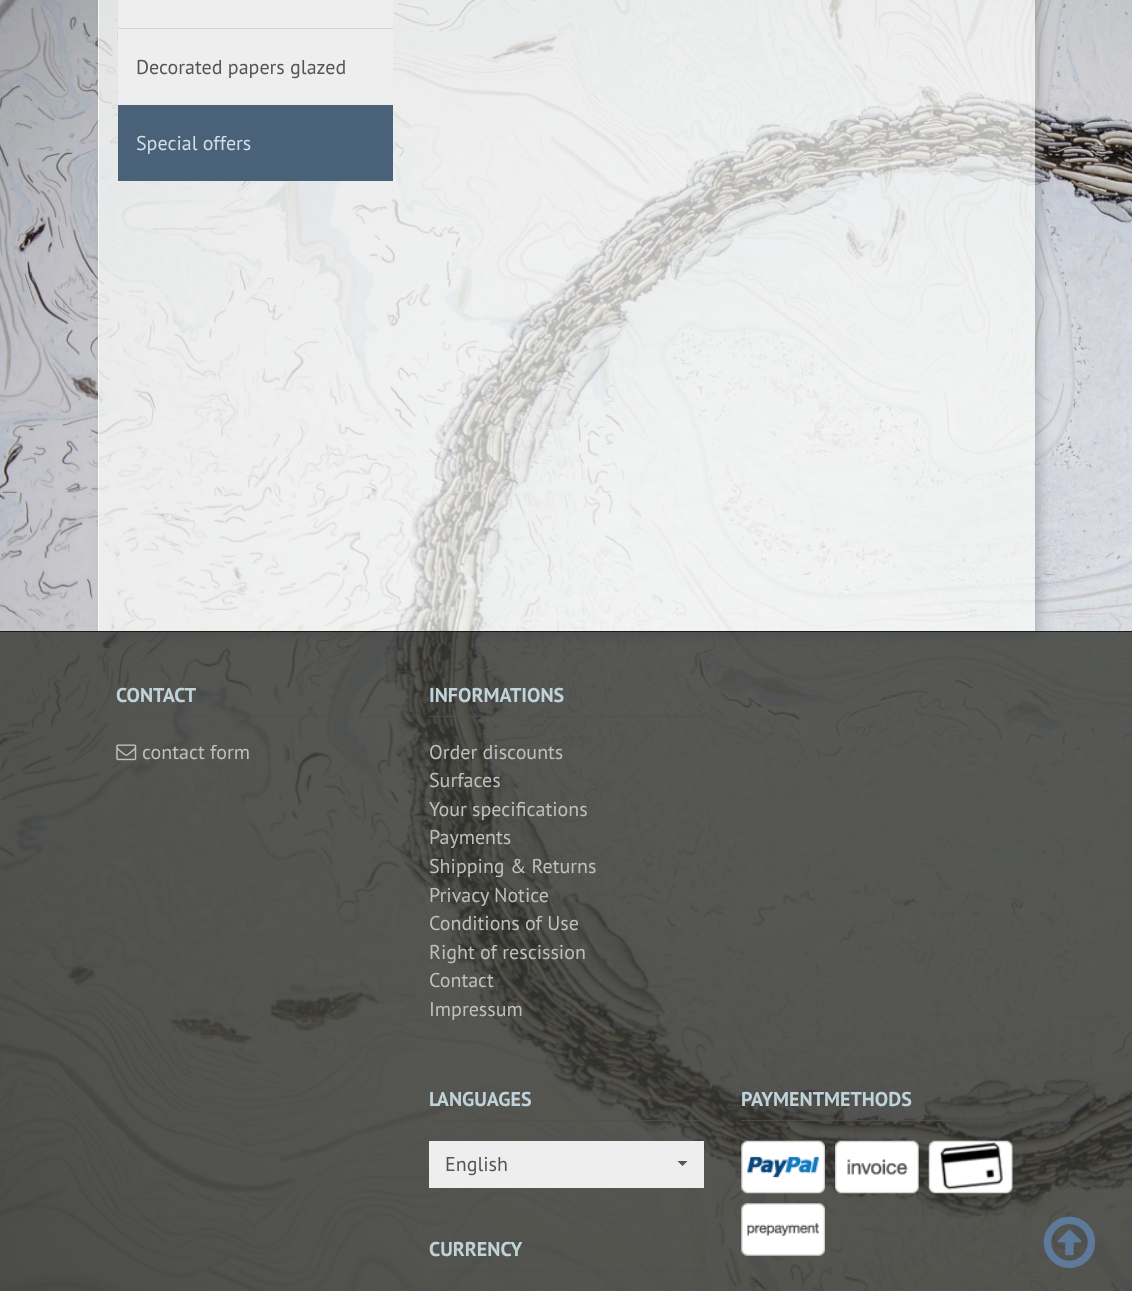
<svg xmlns="http://www.w3.org/2000/svg" width="1132" height="1291" viewBox="0 0 1132 1291">
  <defs>
    <clipPath id="clip1"><path d="M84 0H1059V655H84ZM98-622H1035V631H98Z" clip-rule="evenodd"/></clipPath>
    <filter id="blur1" x="-50%" y="-200%" width="200%" height="500%"><feGaussianBlur stdDeviation="6"/></filter>
  </defs>
  <rect width="100%" height="100%" fill="#ffffff"/>
  <image x="0" y="0" width="1132" height="1291" href="img1.png"/>
  <g clip-path="url(#clip1)">
    <rect x="103" y="-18" width="937" height="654" fill="#898b8d" fill-opacity="0.5" filter="url(#blur1)"/>
  </g>
  <rect x="98" y="0" width="937" height="631" fill="#fbfcfa" fill-opacity="0.7"/>
  <path d="M98 631V-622L99-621V631Z" fill="#ffffff" fill-opacity="0.7"/>
  <rect x="118" y="0" width="275" height="28" fill="#eeeeee"/>
  <rect x="118" y="29" width="275" height="76" fill="#eeeeee"/>
  <rect x="118" y="28" width="275" height="1" fill="#d5d5d5"/>
  <text x="136" y="74" font-family="PT Sans" font-size="20" fill="#555555">Decorated papers glazed</text>
  <rect x="118" y="105" width="275" height="76" fill="#4a617a"/>
  <text x="136" y="150" font-family="PT Sans" font-size="20" fill="#d3dee5">Special offers</text>
  <rect x="0" y="631" width="1132" height="660" fill="#353631" fill-opacity="0.8"/>
  <rect x="0" y="631" width="1132" height="1" fill="#0e0e0d" fill-opacity="0.8"/>
  <rect x="116" y="716" width="275" height="1" fill="#4f5149" fill-opacity="0.8"/>
  <text x="116" y="702" font-family="PT Sans" font-size="20" font-weight="bold" fill="#c0d3d9">CONTACT</text>
  <image x="116" y="744" width="21" height="17" href="img2.png"/>
  <text x="142" y="759" font-family="PT Sans" font-size="20" fill="#bfc0bc">contact form</text>
  <rect x="429" y="716" width="275" height="1" fill="#4f5149" fill-opacity="0.8"/>
  <text x="429" y="702" font-family="PT Sans" font-size="20" font-weight="bold" fill="#c0d3d9">INFORMATIONS</text>
  <text x="429" y="759" font-family="PT Sans" font-size="20" fill="#bfc0bc">Order discounts</text>
  <text x="429" y="787" font-family="PT Sans" font-size="20" fill="#bfc0bc">Surfaces</text>
  <text x="429" y="816" font-family="PT Sans" font-size="20" fill="#bfc0bc">Your specifications</text>
  <text x="429" y="844" font-family="PT Sans" font-size="20" fill="#bfc0bc">Payments</text>
  <text x="429" y="873" font-family="PT Sans" font-size="20" fill="#bfc0bc">Shipping &amp; Returns</text>
  <text x="429" y="902" font-family="PT Sans" font-size="20" fill="#bfc0bc">Privacy Notice</text>
  <text x="429" y="930" font-family="PT Sans" font-size="20" fill="#bfc0bc">Conditions of Use</text>
  <text x="429" y="959" font-family="PT Sans" font-size="20" fill="#bfc0bc">Right of rescission</text>
  <text x="429" y="987" font-family="PT Sans" font-size="20" fill="#bfc0bc">Contact</text>
  <text x="429" y="1016" font-family="PT Sans" font-size="20" fill="#bfc0bc">Impressum</text>
  <rect x="429" y="1120" width="275" height="1" fill="#4f5149" fill-opacity="0.8"/>
  <text x="429" y="1106" font-family="PT Sans" font-size="20" font-weight="bold" fill="#c0d3d9">LANGUAGES</text>
  <rect x="429" y="1141" width="275" height="47" fill="#eeeeee"/>
  <text x="445" y="1171" font-family="PT Sans" font-size="20" fill="#555555">English</text>
  <path d="M677.5 1161H687.5L682.5 1166Z" fill="#555555"/>
  <rect x="429" y="1271" width="275" height="1" fill="#4f5149" fill-opacity="0.8"/>
  <text x="429" y="1256" font-family="PT Sans" font-size="20" font-weight="bold" fill="#c0d3d9">CURRENCY</text>
  <rect x="741" y="1120" width="275" height="1" fill="#4f5149" fill-opacity="0.8"/>
  <text x="741" y="1106" font-family="PT Sans" font-size="20" font-weight="bold" fill="#c0d3d9">PAYMENTMETHODS</text>
  <image x="741" y="1140" width="84" height="54" href="img3.png"/>
  <image x="835" y="1140" width="84" height="54" href="img4.png"/>
  <image x="928" y="1140" width="85" height="54" href="img5.png"/>
  <image x="741" y="1203" width="84" height="53" href="img6.png"/>
  <image x="1043" y="1216" width="53" height="52" href="img7.png"/>
</svg>
